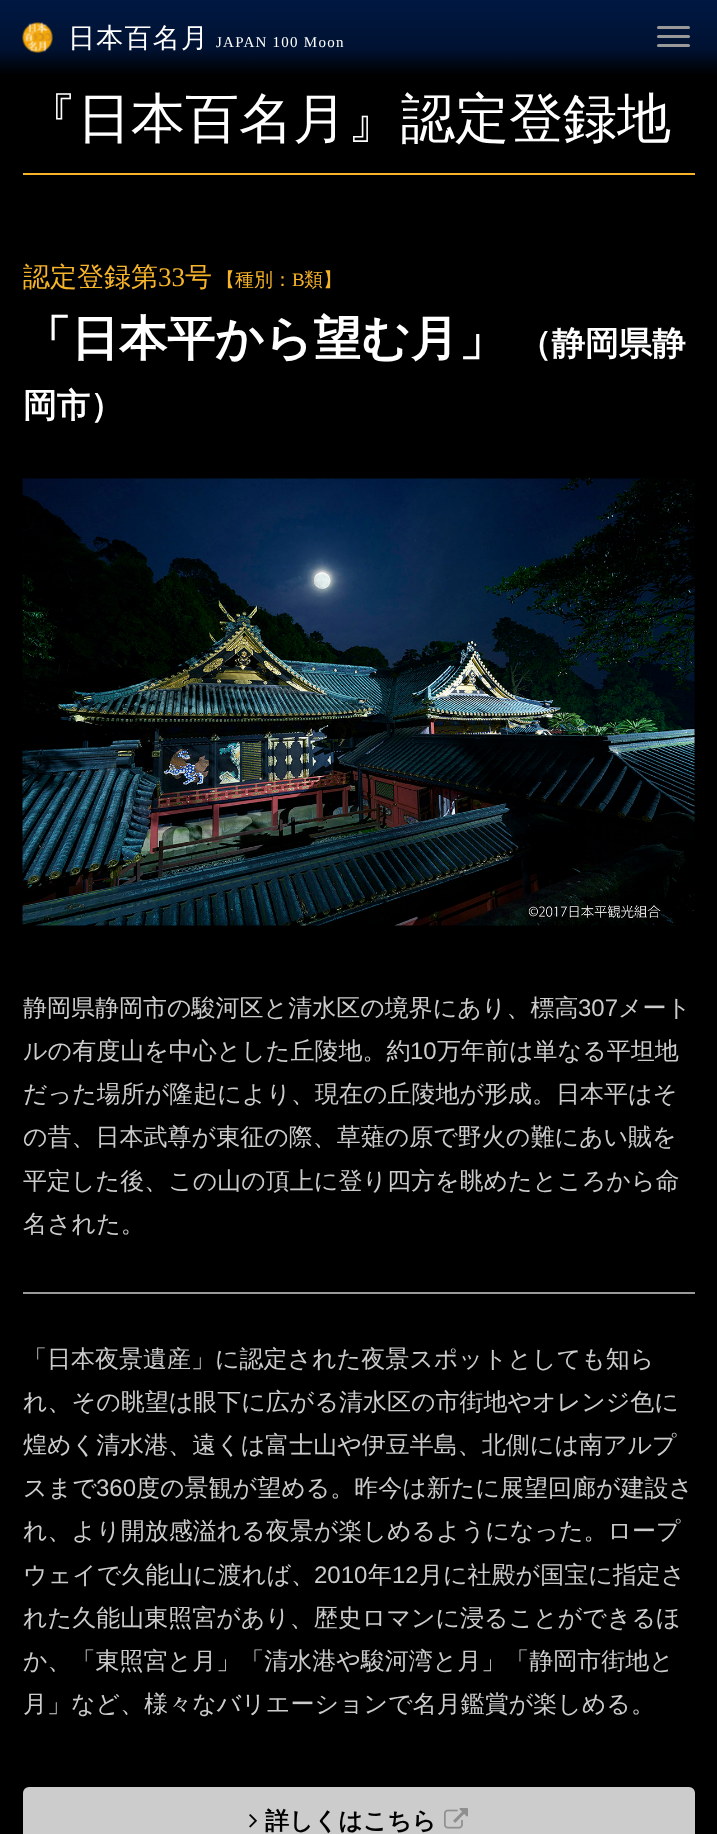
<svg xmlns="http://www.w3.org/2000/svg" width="717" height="1834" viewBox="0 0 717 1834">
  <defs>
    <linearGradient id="g1" gradientUnits="userSpaceOnUse" x1="359" y1="0" x2="359" y2="75"><stop offset="0" stop-color="#001842"/><stop offset="0.65" stop-color="#001232"/><stop offset="1" stop-color="#000000"/></linearGradient>
  </defs>
  <rect width="100%" height="100%" fill="#000000"/>
  <rect x="0" y="0" width="717" height="74" fill="url(#g1)"/>
  <image x="22" y="22" width="31" height="31" href="img1.png"/>
  <text x="68" y="47" font-family="WenQuanYi Zen Hei" font-size="27" font-weight="500" letter-spacing="1.25" fill="#ffffff">日本百名月</text>
  <text x="216" y="47" font-family="Liberation Serif" font-size="15" letter-spacing="1.25" fill="#ffffff">JAPAN 100 Moon</text>
  <rect x="657" y="26" width="33" height="3" rx="1.5" fill="#999999"/>
  <rect x="657" y="35" width="33" height="3" rx="1.5" fill="#999999"/>
  <rect x="657" y="44" width="33" height="3" rx="1.5" fill="#999999"/>
  <rect x="23" y="173" width="672" height="2" fill="#f6b42a"/>
  <text x="23" y="137" font-family="WenQuanYi Zen Hei" font-size="54" font-weight="500" fill="#ffffff">『日本百名月』認定登録地</text>
  <text x="23" y="286" font-family="WenQuanYi Zen Hei" font-size="27" font-weight="500" fill="#f6b42a">認定登録第</text>
  <text x="158" y="286" font-family="Liberation Serif" font-size="27" fill="#f6b42a">33</text>
  <text x="185" y="286" font-family="WenQuanYi Zen Hei" font-size="27" font-weight="500" fill="#f6b42a">号</text>
  <text x="216" y="286" font-family="WenQuanYi Zen Hei" font-size="19" font-weight="500" fill="#f6b42a">【種別：</text>
  <text x="292" y="286" font-family="Liberation Serif" font-size="19" fill="#f6b42a">B</text>
  <text x="304" y="286" font-family="WenQuanYi Zen Hei" font-size="19" font-weight="500" fill="#f6b42a">類】</text>
  <text x="23" y="355" font-family="WenQuanYi Zen Hei" font-size="48" font-weight="bold" fill="#ffffff">「日本平から望む月」</text>
  <text x="518" y="355" font-family="WenQuanYi Zen Hei" font-size="33.5" font-weight="bold" fill="#ffffff">（静岡県静</text>
  <text x="23" y="417" font-family="WenQuanYi Zen Hei" font-size="33.5" font-weight="bold" fill="#ffffff">岡市）</text>
  <image x="22" y="478" width="673" height="448" href="img2.png"/>
  <text x="23" y="1016" font-family="WenQuanYi Zen Hei" font-size="24" font-weight="500" fill="#cccccc">静岡県静岡市の駿河区と清水区の境界にあり、標高</text>
  <text x="578" y="1016" font-family="Liberation Sans" font-size="24" fill="#cccccc">307</text>
  <text x="618" y="1016" font-family="WenQuanYi Zen Hei" font-size="24" font-weight="500" fill="#cccccc">メート</text>
  <text x="23" y="1059" font-family="WenQuanYi Zen Hei" font-size="24" font-weight="500" fill="#cccccc">ルの有度山を中心とした丘陵地。約</text>
  <text x="410" y="1059" font-family="Liberation Sans" font-size="24" fill="#cccccc">10</text>
  <text x="437" y="1059" font-family="WenQuanYi Zen Hei" font-size="24" font-weight="500" fill="#cccccc">万年前は単なる平坦地</text>
  <text x="23" y="1102" font-family="WenQuanYi Zen Hei" font-size="24" font-weight="500" fill="#cccccc">だった場所が隆起により、現在の丘陵地が形成。日本平はそ</text>
  <text x="23" y="1145" font-family="WenQuanYi Zen Hei" font-size="24" font-weight="500" fill="#cccccc">の昔、日本武尊が東征の際、草薙の原で野火の難にあい賊を</text>
  <text x="23" y="1189" font-family="WenQuanYi Zen Hei" font-size="24" font-weight="500" fill="#cccccc">平定した後、この山の頂上に登り四方を眺めたところから命</text>
  <text x="23" y="1232" font-family="WenQuanYi Zen Hei" font-size="24" font-weight="500" fill="#cccccc">名された。</text>
  <rect x="23" y="1292" width="672" height="2" fill="#999999"/>
  <text x="23" y="1367" font-family="WenQuanYi Zen Hei" font-size="24" font-weight="500" fill="#cccccc">「日本夜景遺産」に認定された夜景スポットとしても知ら</text>
  <text x="23" y="1410" font-family="WenQuanYi Zen Hei" font-size="24" font-weight="500" fill="#cccccc">れ、その眺望は眼下に広がる清水区の市街地やオレンジ色に</text>
  <text x="23" y="1453" font-family="WenQuanYi Zen Hei" font-size="24" font-weight="500" fill="#cccccc">煌めく清水港、遠くは富士山や伊豆半島、北側には南アルプ</text>
  <text x="23" y="1496" font-family="WenQuanYi Zen Hei" font-size="24" font-weight="500" fill="#cccccc">スまで</text>
  <text x="96" y="1496" font-family="Liberation Sans" font-size="24" fill="#cccccc">360</text>
  <text x="136" y="1496" font-family="WenQuanYi Zen Hei" font-size="24" font-weight="500" fill="#cccccc">度の景観が望める。昨今は新たに展望回廊が建設さ</text>
  <text x="23" y="1539" font-family="WenQuanYi Zen Hei" font-size="24" font-weight="500" fill="#cccccc">れ、より開放感溢れる夜景が楽しめるようになった。ロープ</text>
  <text x="23" y="1583" font-family="WenQuanYi Zen Hei" font-size="24" font-weight="500" fill="#cccccc">ウェイで久能山に渡れば、</text>
  <text x="314" y="1583" font-family="Liberation Sans" font-size="24" fill="#cccccc">2010</text>
  <text x="368" y="1583" font-family="WenQuanYi Zen Hei" font-size="24" font-weight="500" fill="#cccccc">年</text>
  <text x="392" y="1583" font-family="Liberation Sans" font-size="24" fill="#cccccc">12</text>
  <text x="419" y="1583" font-family="WenQuanYi Zen Hei" font-size="24" font-weight="500" fill="#cccccc">月に社殿が国宝に指定さ</text>
  <text x="23" y="1626" font-family="WenQuanYi Zen Hei" font-size="24" font-weight="500" fill="#cccccc">れた久能山東照宮があり、歴史ロマンに浸ることができるほ</text>
  <text x="23" y="1669" font-family="WenQuanYi Zen Hei" font-size="24" font-weight="500" fill="#cccccc">か、「東照宮と月」「清水港や駿河湾と月」「静岡市街地と</text>
  <text x="23" y="1712" font-family="WenQuanYi Zen Hei" font-size="24" font-weight="500" fill="#cccccc">月」など、様々なバリエーションで名月鑑賞が楽しめる。</text>
  <rect x="23" y="1787" width="672" height="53" rx="6" fill="#cccccc"/>
  <image x="249" y="1814" width="8" height="14" href="img3.png"/>
  <text x="265" y="1829" font-family="WenQuanYi Zen Hei" font-size="24" font-weight="bold" fill="#000000">詳しくはこちら</text>
  <image x="444" y="1808" width="24" height="21" href="img4.png"/>
</svg>
